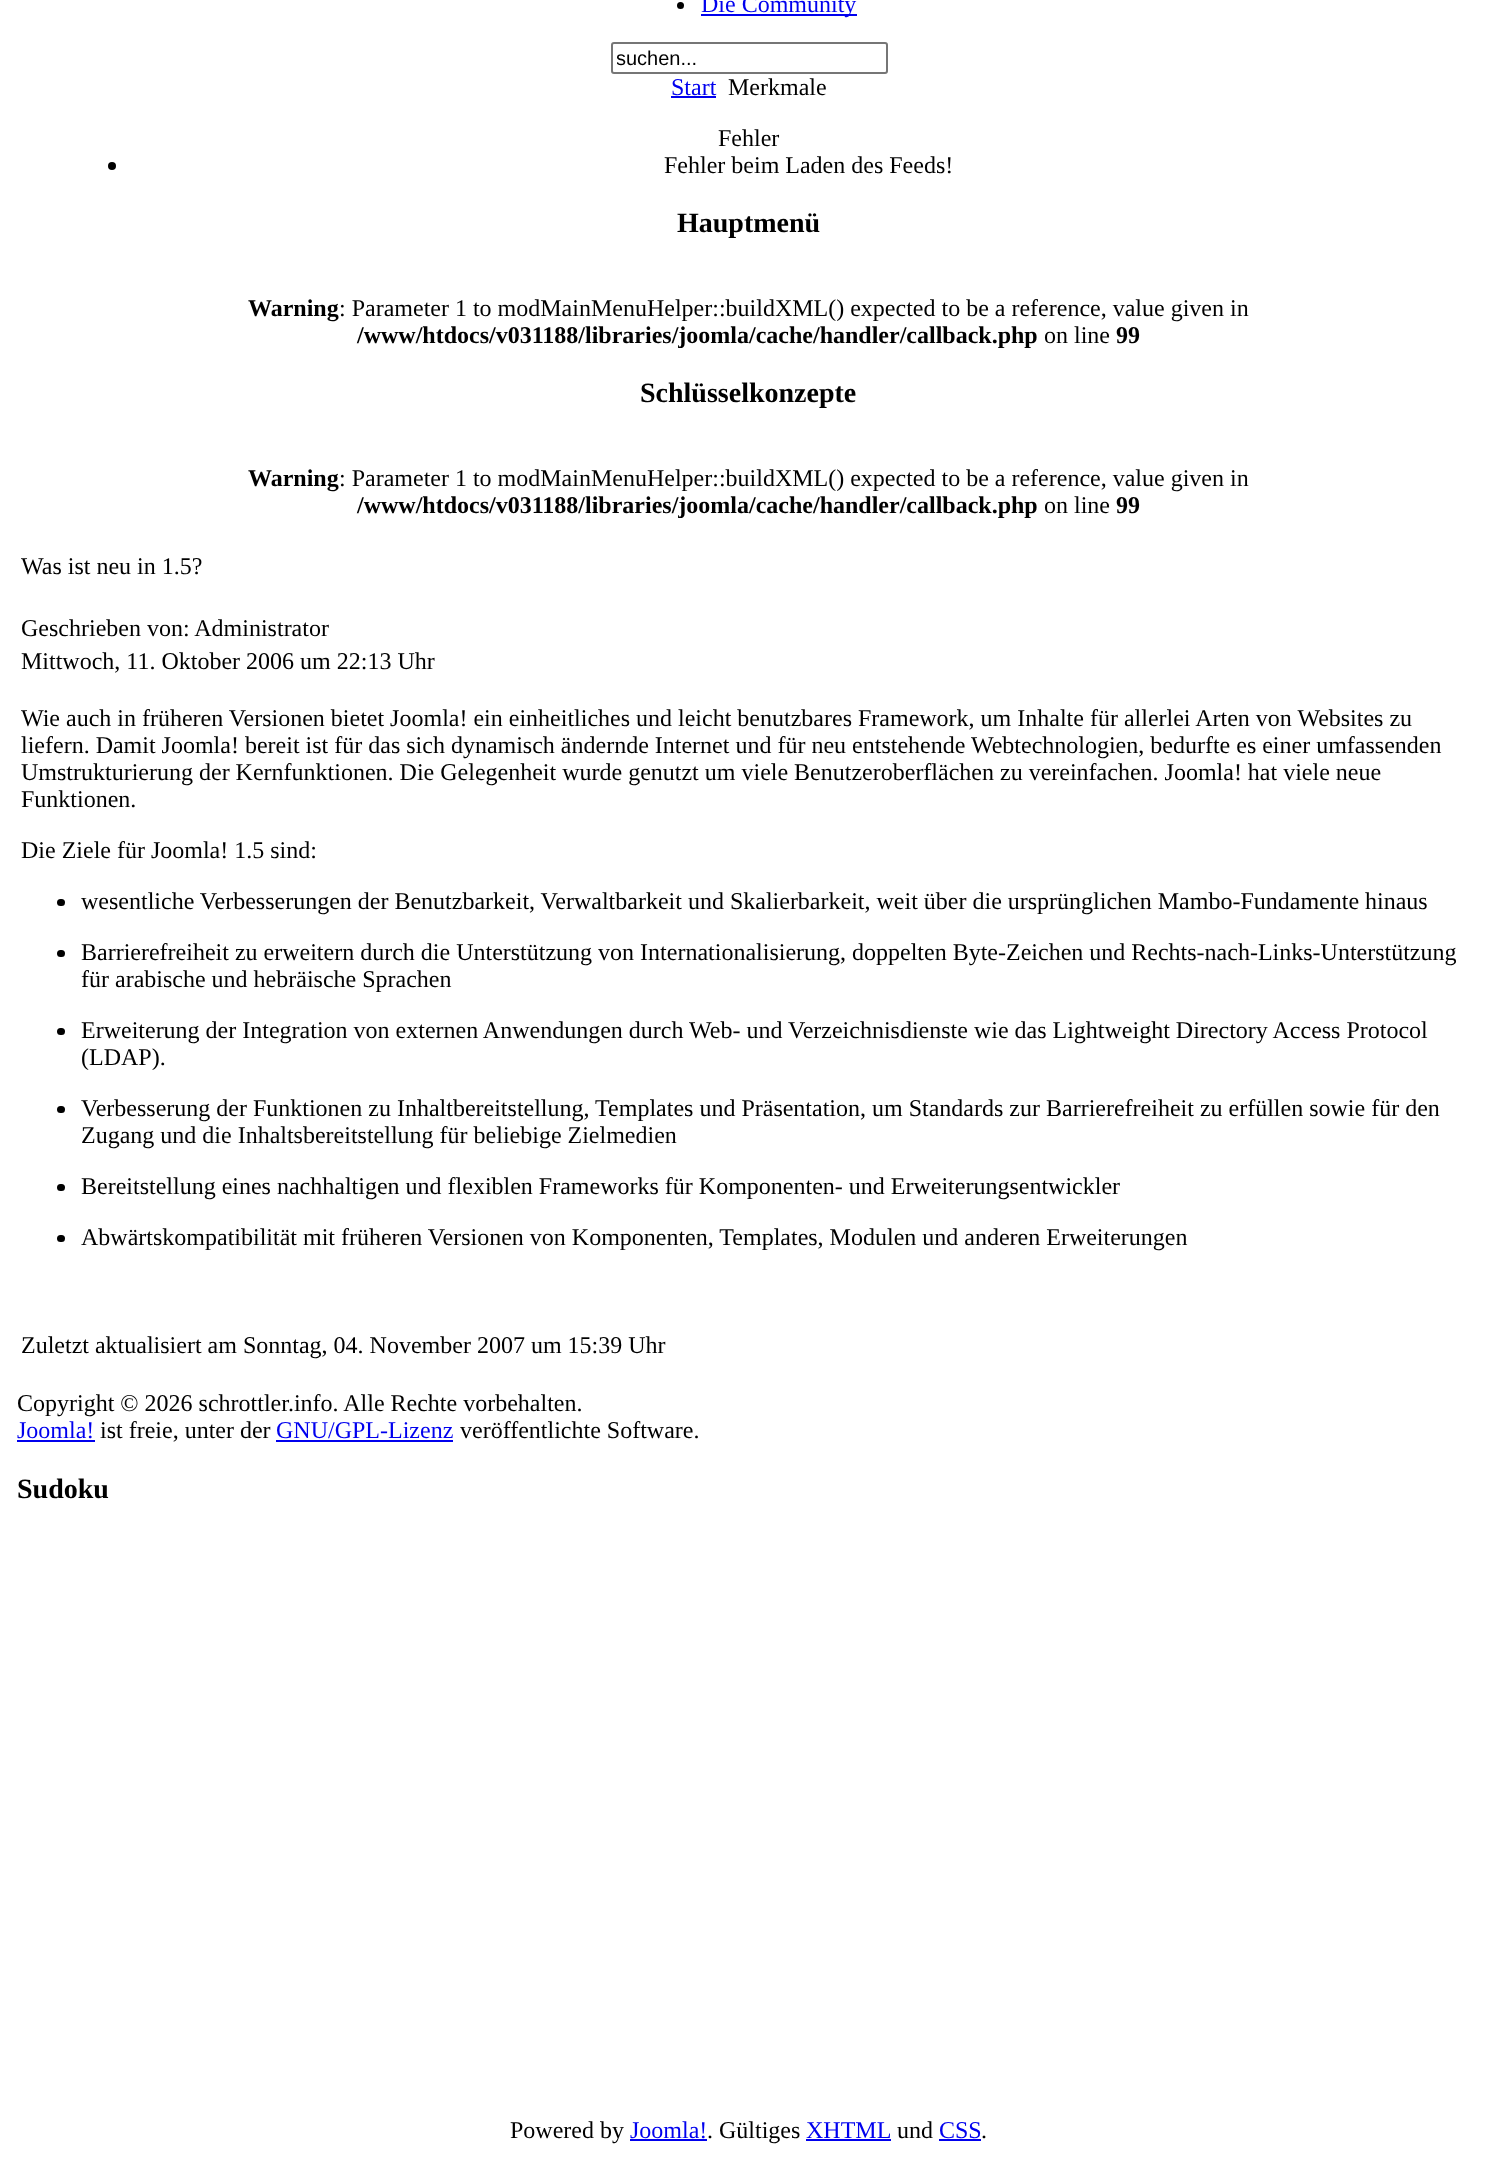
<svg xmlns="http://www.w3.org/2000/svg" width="1497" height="2167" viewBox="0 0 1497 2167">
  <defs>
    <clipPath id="clip1"><rect x="617" y="47" width="265" height="22"/></clipPath>
  </defs>
  <rect width="100%" height="100%" fill="#ffffff"/>
  <circle cx="680.5" cy="5.5" r="3.5" fill="#000000"/>
  <rect x="701" y="14" width="156" height="2" fill="#0000ee"/>
  <text x="701" y="12" font-family="Liberation Serif" font-size="24" fill="#0000ee">Die Community</text>
  <rect x="612" y="43" width="275" height="30" rx="2" fill="none" stroke="#767676" stroke-width="2"/>
  <g clip-path="url(#clip1)">
    <text x="616" y="65" font-family="Liberation Sans" font-size="20" fill="#000000">suchen...</text>
  </g>
  <text x="671" y="95" font-family="Liberation Serif" font-size="24" fill="#0000ee">Start</text>
  <rect x="671" y="96" width="45" height="2" fill="#0000ee"/>
  <text x="728" y="95" font-family="Liberation Serif" font-size="24" fill="#000000">Merkmale</text>
  <text x="718" y="146" font-family="Liberation Serif" font-size="24" fill="#000000">Fehler</text>
  <circle cx="112" cy="166" r="4" fill="#000000"/>
  <text x="664" y="173" font-family="Liberation Serif" font-size="24" fill="#000000">Fehler beim Laden des Feeds!</text>
  <text x="677" y="232" font-family="Liberation Serif" font-size="28" font-weight="bold" fill="#000000">Hauptmenü</text>
  <text x="248" y="316" font-family="Liberation Serif" font-size="24" font-weight="bold" fill="#000000">Warning</text>
  <text x="339" y="316" font-family="Liberation Serif" font-size="24" fill="#000000">: Parameter 1 to modMainMenuHelper::buildXML() expected to be a reference, value given in</text>
  <text x="357" y="343" font-family="Liberation Serif" font-size="24" font-weight="bold" fill="#000000">/www/htdocs/v031188/libraries/joomla/cache/handler/callback.php</text>
  <text x="1044" y="343" font-family="Liberation Serif" font-size="24" fill="#000000">on line</text>
  <text x="1116" y="343" font-family="Liberation Serif" font-size="24" font-weight="bold" fill="#000000">99</text>
  <text x="640" y="402" font-family="Liberation Serif" font-size="28" font-weight="bold" fill="#000000">Schlüsselkonzepte</text>
  <text x="248" y="486" font-family="Liberation Serif" font-size="24" font-weight="bold" fill="#000000">Warning</text>
  <text x="339" y="486" font-family="Liberation Serif" font-size="24" fill="#000000">: Parameter 1 to modMainMenuHelper::buildXML() expected to be a reference, value given in</text>
  <text x="357" y="513" font-family="Liberation Serif" font-size="24" font-weight="bold" fill="#000000">/www/htdocs/v031188/libraries/joomla/cache/handler/callback.php</text>
  <text x="1044" y="513" font-family="Liberation Serif" font-size="24" fill="#000000">on line</text>
  <text x="1116" y="513" font-family="Liberation Serif" font-size="24" font-weight="bold" fill="#000000">99</text>
  <text x="21" y="574" font-family="Liberation Serif" font-size="24" fill="#000000">Was ist neu in 1.5?</text>
  <text x="21" y="636" font-family="Liberation Serif" font-size="24" fill="#000000">Geschrieben von: Administrator</text>
  <text x="21" y="669" font-family="Liberation Serif" font-size="24" fill="#000000">Mittwoch, 11. Oktober 2006 um 22:13 Uhr</text>
  <text x="21" y="726" font-family="Liberation Serif" font-size="24" fill="#000000">Wie auch in früheren Versionen bietet Joomla! ein einheitliches und leicht benutzbares Framework, um Inhalte für allerlei Arten von Websites zu</text>
  <text x="21" y="753" font-family="Liberation Serif" font-size="24" fill="#000000">liefern. Damit Joomla! bereit ist für das sich dynamisch ändernde Internet und für neu entstehende Webtechnologien, bedurfte es einer umfassenden</text>
  <text x="21" y="780" font-family="Liberation Serif" font-size="24" fill="#000000">Umstrukturierung der Kernfunktionen. Die Gelegenheit wurde genutzt um viele Benutzeroberflächen zu vereinfachen. Joomla! hat viele neue</text>
  <text x="21" y="807" font-family="Liberation Serif" font-size="24" fill="#000000">Funktionen.</text>
  <text x="21" y="858" font-family="Liberation Serif" font-size="24" fill="#000000">Die Ziele für Joomla! 1.5 sind:</text>
  <rect x="57" y="899" width="8" height="7" rx="3.5" fill="#000000"/>
  <text x="81" y="909" font-family="Liberation Serif" font-size="24" fill="#000000">wesentliche Verbesserungen der Benutzbarkeit, Verwaltbarkeit und Skalierbarkeit, weit über die ursprünglichen Mambo-Fundamente hinaus</text>
  <rect x="57" y="950" width="8" height="7" rx="3.5" fill="#000000"/>
  <text x="81" y="960" font-family="Liberation Serif" font-size="24" fill="#000000">Barrierefreiheit zu erweitern durch die Unterstützung von Internationalisierung, doppelten Byte-Zeichen und Rechts-nach-Links-Unterstützung</text>
  <text x="81" y="987" font-family="Liberation Serif" font-size="24" fill="#000000">für arabische und hebräische Sprachen</text>
  <rect x="57" y="1028" width="8" height="7" rx="3.5" fill="#000000"/>
  <text x="81" y="1038" font-family="Liberation Serif" font-size="24" fill="#000000">Erweiterung der Integration von externen Anwendungen durch Web- und Verzeichnisdienste wie das Lightweight Directory Access Protocol</text>
  <text x="81" y="1065" font-family="Liberation Serif" font-size="24" fill="#000000">(LDAP).</text>
  <rect x="57" y="1106" width="8" height="7" rx="3.5" fill="#000000"/>
  <text x="81" y="1116" font-family="Liberation Serif" font-size="24" fill="#000000">Verbesserung der Funktionen zu Inhaltbereitstellung, Templates und Präsentation, um Standards zur Barrierefreiheit zu erfüllen sowie für den</text>
  <text x="81" y="1143" font-family="Liberation Serif" font-size="24" fill="#000000">Zugang und die Inhaltsbereitstellung für beliebige Zielmedien</text>
  <rect x="57" y="1184" width="8" height="7" rx="3.5" fill="#000000"/>
  <text x="81" y="1194" font-family="Liberation Serif" font-size="24" fill="#000000">Bereitstellung eines nachhaltigen und flexiblen Frameworks für Komponenten- und Erweiterungsentwickler</text>
  <rect x="57" y="1235" width="8" height="7" rx="3.5" fill="#000000"/>
  <text x="81" y="1245" font-family="Liberation Serif" font-size="24" fill="#000000">Abwärtskompatibilität mit früheren Versionen von Komponenten, Templates, Modulen und anderen Erweiterungen</text>
  <text x="21" y="1353" font-family="Liberation Serif" font-size="24" fill="#000000">Zuletzt aktualisiert am Sonntag, 04. November 2007 um 15:39 Uhr</text>
  <text x="17" y="1411" font-family="Liberation Serif" font-size="24" fill="#000000">Copyright © 2026 schrottler.info. Alle Rechte vorbehalten.</text>
  <text x="17" y="1438" font-family="Liberation Serif" font-size="24" fill="#0000ee">Joomla!</text>
  <rect x="17" y="1440" width="78" height="2" fill="#0000ee"/>
  <text x="100" y="1438" font-family="Liberation Serif" font-size="24" fill="#000000">ist freie, unter der</text>
  <text x="276" y="1438" font-family="Liberation Serif" font-size="24" fill="#0000ee">GNU/GPL-Lizenz</text>
  <rect x="276" y="1440" width="177" height="2" fill="#0000ee"/>
  <text x="460" y="1438" font-family="Liberation Serif" font-size="24" fill="#000000">veröffentlichte Software.</text>
  <text x="17" y="1498" font-family="Liberation Serif" font-size="28" font-weight="bold" fill="#000000">Sudoku</text>
  <text x="510" y="2138" font-family="Liberation Serif" font-size="24" fill="#000000">Powered by</text>
  <text x="630" y="2138" font-family="Liberation Serif" font-size="24" fill="#0000ee">Joomla!</text>
  <rect x="630" y="2139" width="77" height="2" fill="#0000ee"/>
  <text x="707" y="2138" font-family="Liberation Serif" font-size="24" fill="#000000">. Gültiges</text>
  <text x="806" y="2138" font-family="Liberation Serif" font-size="24" fill="#0000ee">XHTML</text>
  <rect x="806" y="2139" width="85" height="2" fill="#0000ee"/>
  <text x="897" y="2138" font-family="Liberation Serif" font-size="24" fill="#000000">und</text>
  <text x="939" y="2138" font-family="Liberation Serif" font-size="24" fill="#0000ee">CSS</text>
  <rect x="939" y="2139" width="42" height="2" fill="#0000ee"/>
  <text x="981" y="2138" font-family="Liberation Serif" font-size="24" fill="#000000">.</text>
</svg>
